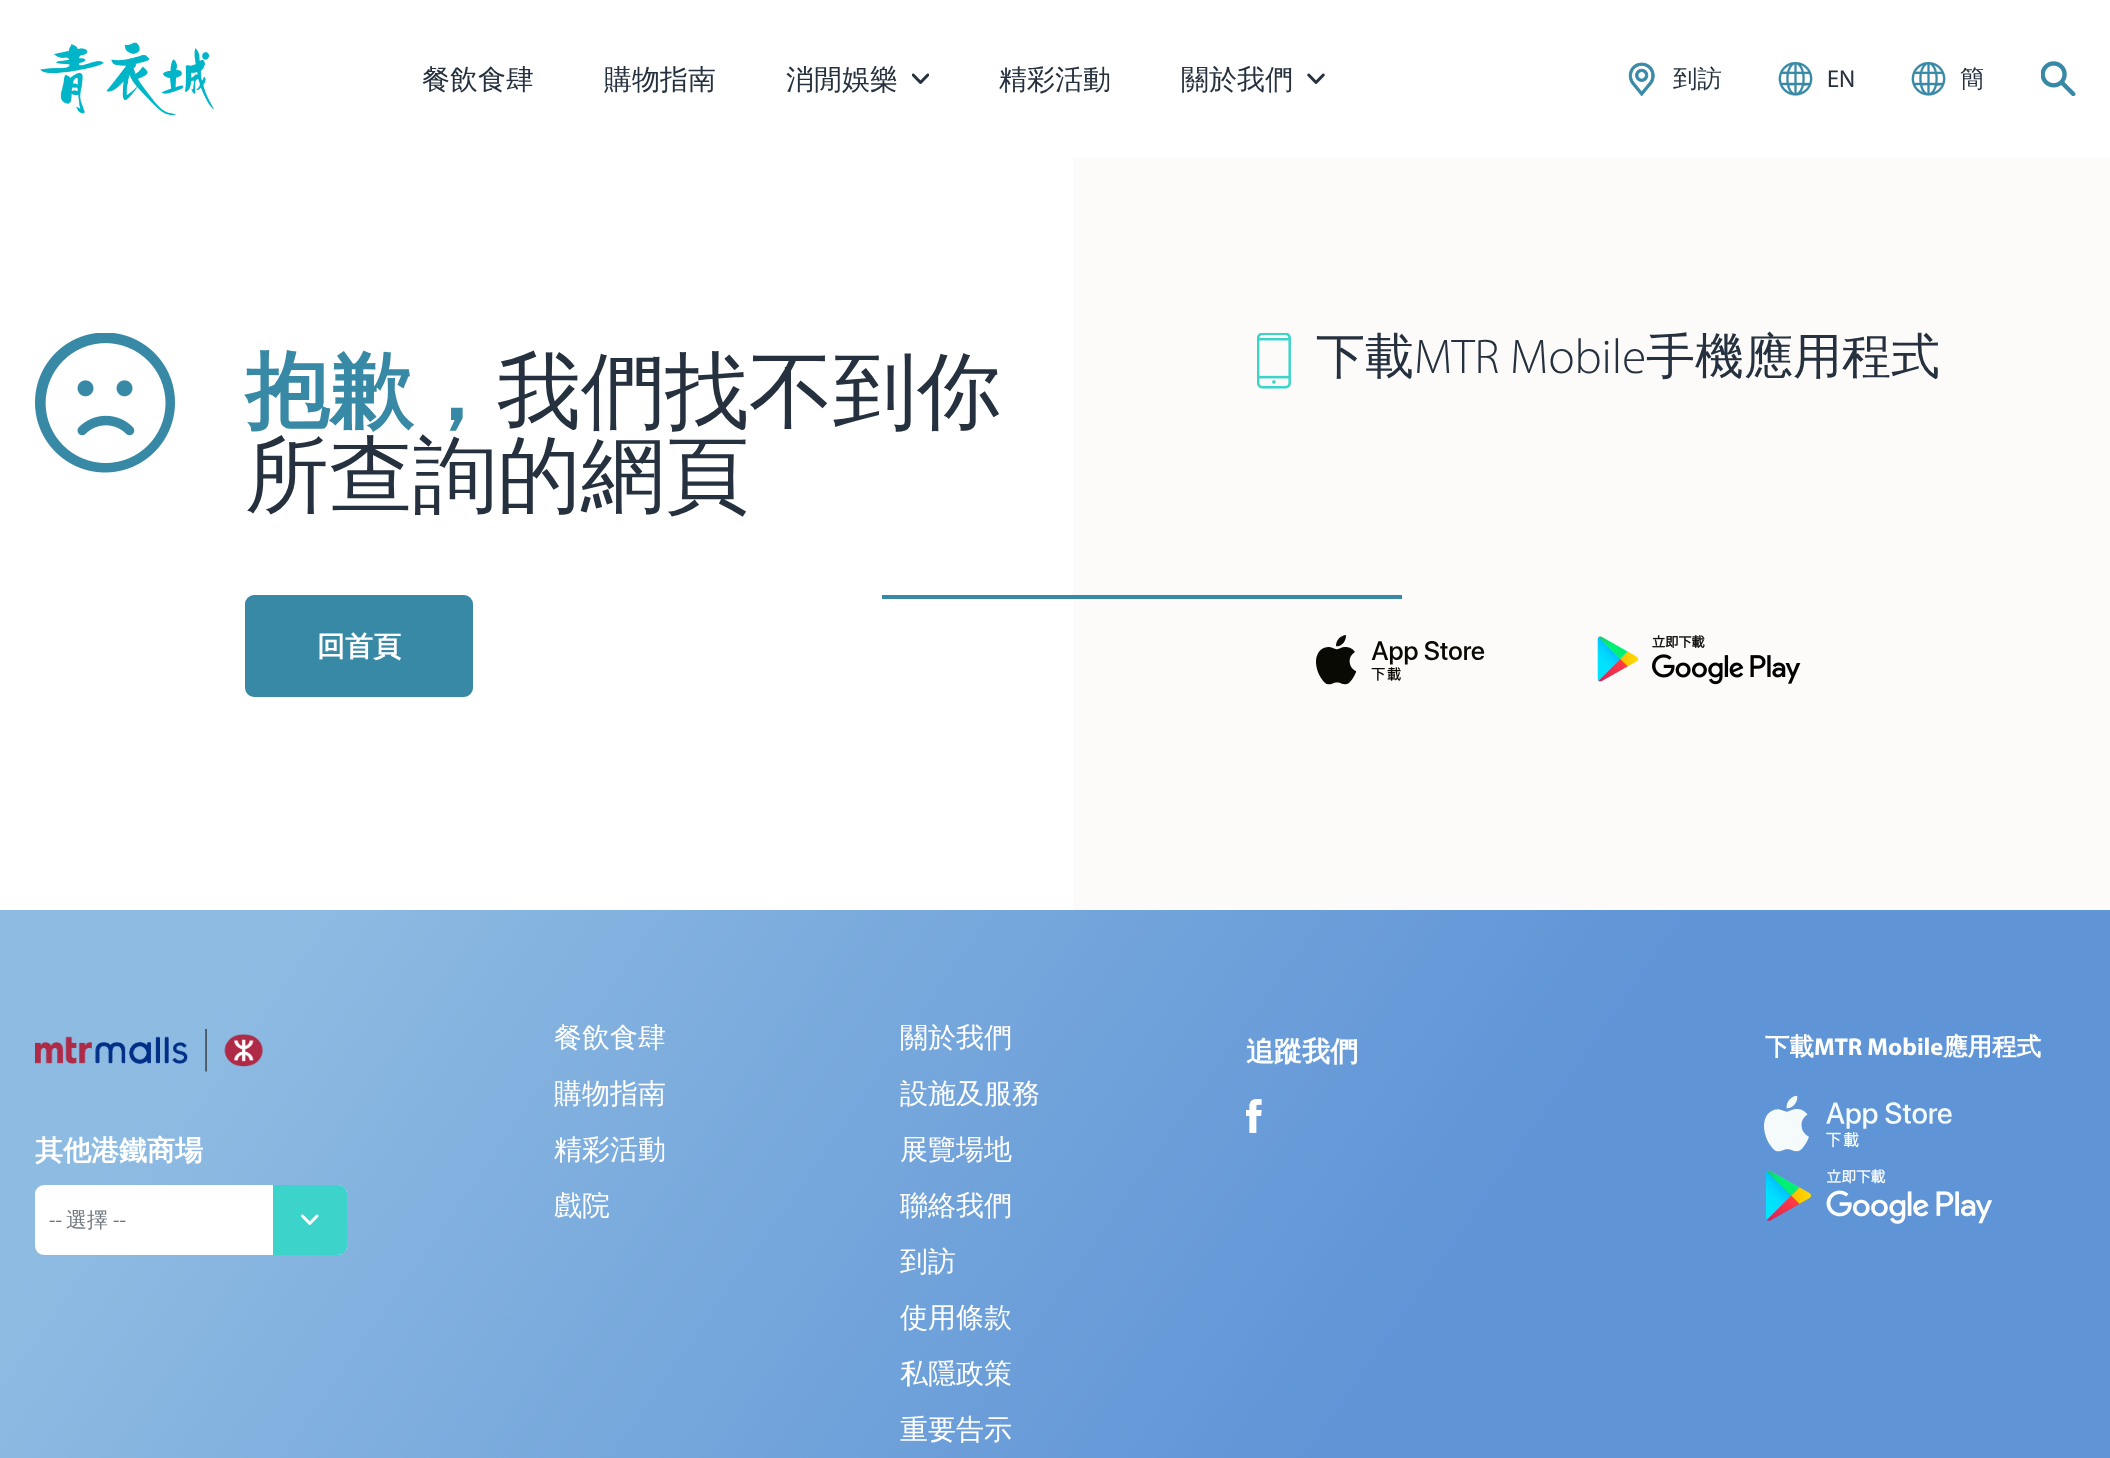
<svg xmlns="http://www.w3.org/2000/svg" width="2110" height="1458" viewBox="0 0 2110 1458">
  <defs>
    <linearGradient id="g1" gradientUnits="userSpaceOnUse" x1="188" y1="642" x2="1923" y2="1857"><stop offset="0.11" stop-color="#8ebbe2"/><stop offset="0.66" stop-color="#5f94d6"/></linearGradient>
  </defs>
  <rect width="100%" height="100%" fill="#fcfbf9"/>
  <rect x="0" y="0" width="2110" height="158" fill="#ffffff"/>
  <image x="40" y="42" width="174" height="74" href="img1.png"/>
  <text x="422" y="89" font-family="WenQuanYi Zen Hei" font-size="28" font-weight="500" fill="#25313e">餐飲食肆</text>
  <text x="604" y="89" font-family="WenQuanYi Zen Hei" font-size="28" font-weight="500" fill="#25313e">購物指南</text>
  <text x="786" y="89" font-family="WenQuanYi Zen Hei" font-size="28" font-weight="500" fill="#25313e">消閒娛樂</text>
  <image x="912" y="73" width="17" height="11" href="img2.png"/>
  <text x="999" y="89" font-family="WenQuanYi Zen Hei" font-size="28" font-weight="500" fill="#25313e">精彩活動</text>
  <text x="1181" y="89" font-family="WenQuanYi Zen Hei" font-size="28" font-weight="500" fill="#25313e">關於我們</text>
  <image x="1307" y="73" width="18" height="11" href="img3.png"/>
  <image x="1628" y="62" width="27" height="34" href="img4.png"/>
  <text x="1673" y="87" font-family="WenQuanYi Zen Hei" font-size="24.5" font-weight="500" fill="#25313e">到訪</text>
  <image x="1778" y="61" width="35" height="35" href="img5.png"/>
  <text x="1827" y="87" font-family="Myriad" font-size="24.5" fill="#25313e">EN</text>
  <image x="1911" y="61" width="35" height="35" href="img5.png"/>
  <text x="1960" y="87" font-family="WenQuanYi Zen Hei" font-size="24.5" font-weight="500" fill="#25313e">簡</text>
  <image x="2041" y="61" width="35" height="35" href="img6.png"/>
  <rect x="0" y="158" width="1073" height="752" fill="#ffffff"/>
  <image x="35" y="333" width="140" height="140" href="img7.png"/>
  <text x="245" y="420" font-family="WenQuanYi Zen Hei" font-size="84" font-weight="bold" fill="#3889a6">抱歉，</text>
  <text x="497" y="420" font-family="WenQuanYi Zen Hei" font-size="84" font-weight="500" fill="#25313e">我們找不到你</text>
  <text x="245" y="504" font-family="WenQuanYi Zen Hei" font-size="84" font-weight="500" fill="#25313e">所查詢的網頁</text>
  <image x="1257" y="333" width="34" height="56" href="img8.png"/>
  <text x="1316" y="373" font-family="WenQuanYi Zen Hei" font-size="49" font-weight="500" fill="#25313e">下載</text>
  <text x="1414" y="373" font-family="Myriad" font-size="49" font-weight="300" fill="#25313e">MTR Mobile</text>
  <text x="1646" y="373" font-family="WenQuanYi Zen Hei" font-size="49" font-weight="500" fill="#25313e">手機應用程式</text>
  <rect x="882" y="595" width="520" height="4" fill="#3889a6"/>
  <rect x="246" y="596" width="226" height="100" rx="8" fill="#3889a6" stroke="#3889a6" stroke-width="2"/>
  <text x="317" y="656" font-family="WenQuanYi Zen Hei" font-size="28" font-weight="bold" fill="#ffffff">回首頁</text>
  <image x="1316" y="635" width="169" height="50" href="img9.png"/>
  <image x="1597" y="635" width="204" height="50" href="img10.png"/>
  <rect x="0" y="910" width="2110" height="548" fill="url(#g1)"/>
  <text x="554" y="1047" font-family="WenQuanYi Zen Hei" font-size="28" font-weight="500" fill="#ffffff">餐飲食肆</text>
  <text x="554" y="1103" font-family="WenQuanYi Zen Hei" font-size="28" font-weight="500" fill="#ffffff">購物指南</text>
  <text x="554" y="1159" font-family="WenQuanYi Zen Hei" font-size="28" font-weight="500" fill="#ffffff">精彩活動</text>
  <text x="554" y="1215" font-family="WenQuanYi Zen Hei" font-size="28" font-weight="500" fill="#ffffff">戲院</text>
  <text x="900" y="1047" font-family="WenQuanYi Zen Hei" font-size="28" font-weight="500" fill="#ffffff">關於我們</text>
  <text x="900" y="1103" font-family="WenQuanYi Zen Hei" font-size="28" font-weight="500" fill="#ffffff">設施及服務</text>
  <text x="900" y="1159" font-family="WenQuanYi Zen Hei" font-size="28" font-weight="500" fill="#ffffff">展覽場地</text>
  <text x="900" y="1215" font-family="WenQuanYi Zen Hei" font-size="28" font-weight="500" fill="#ffffff">聯絡我們</text>
  <text x="900" y="1271" font-family="WenQuanYi Zen Hei" font-size="28" font-weight="500" fill="#ffffff">到訪</text>
  <text x="900" y="1327" font-family="WenQuanYi Zen Hei" font-size="28" font-weight="500" fill="#ffffff">使用條款</text>
  <text x="900" y="1383" font-family="WenQuanYi Zen Hei" font-size="28" font-weight="500" fill="#ffffff">私隱政策</text>
  <text x="900" y="1439" font-family="WenQuanYi Zen Hei" font-size="28" font-weight="500" fill="#ffffff">重要告示</text>
  <text x="1246" y="1061" font-family="WenQuanYi Zen Hei" font-size="28" font-weight="bold" fill="#ffffff">追蹤我們</text>
  <image x="1246" y="1099" width="16" height="34" href="img11.png"/>
  <text x="1765" y="1055" font-family="WenQuanYi Zen Hei" font-size="24.5" font-weight="bold" fill="#ffffff">下載</text>
  <text x="1814" y="1055" font-family="Myriad" font-size="24.5" font-weight="bold" fill="#ffffff">MTR Mobile</text>
  <text x="1943" y="1055" font-family="WenQuanYi Zen Hei" font-size="24.5" font-weight="bold" fill="#ffffff">應用程式</text>
  <image x="1764" y="1095" width="188" height="57" href="img12.png"/>
  <image x="1765" y="1169" width="228" height="55" href="img13.png"/>
  <image x="35" y="1029" width="228" height="43" href="img14.png"/>
  <text x="35" y="1160" font-family="WenQuanYi Zen Hei" font-size="28" font-weight="bold" fill="#ffffff">其他港鐵商場</text>
  <rect x="35" y="1185" width="312" height="70" rx="9" fill="#ffffff"/>
  <text x="49" y="1227" font-family="Myriad" font-size="21" fill="#70777f">--</text>
  <text x="66" y="1227" font-family="WenQuanYi Zen Hei" font-size="21" font-weight="500" fill="#70777f">選擇</text>
  <text x="113" y="1227" font-family="Myriad" font-size="21" fill="#70777f">--</text>
  <path d="M273 1185H338C343 1185 347 1189 347 1194V1246C347 1251 343 1255 338 1255H273Z" fill="#3cd3cb"/>
  <image x="301" y="1214" width="18" height="11" href="img15.png"/>
</svg>
